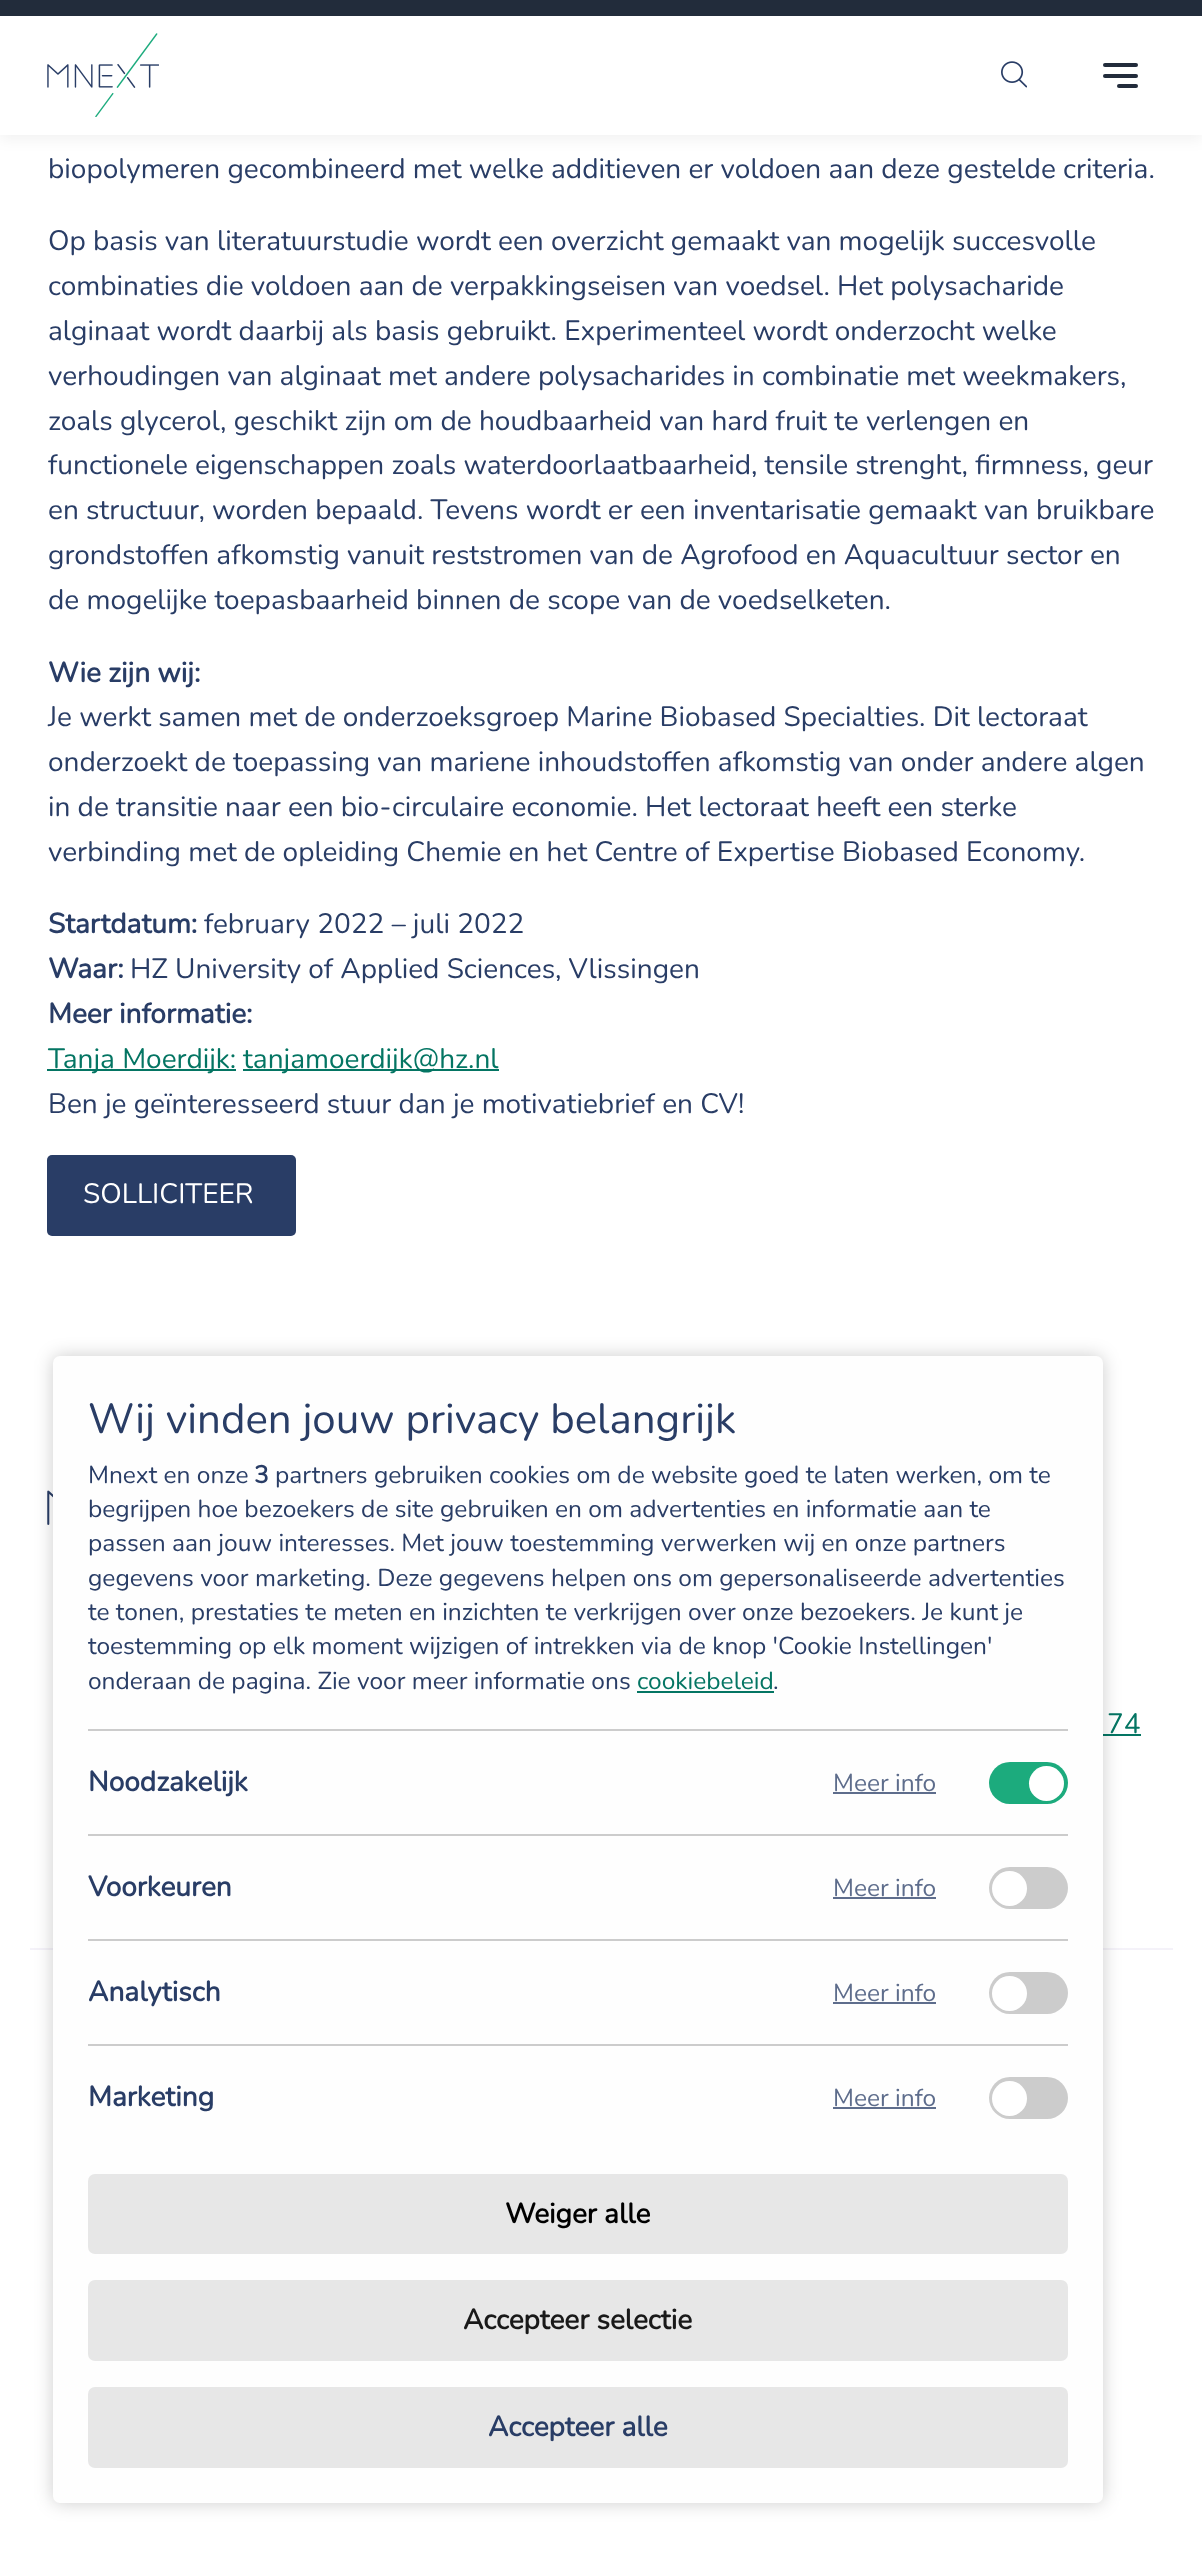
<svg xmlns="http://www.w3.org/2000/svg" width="1202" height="2554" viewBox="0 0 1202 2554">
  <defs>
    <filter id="blur1" x="-50%" y="-200%" width="200%" height="500%"><feGaussianBlur stdDeviation="7"/></filter>
    <filter id="blur2" x="-50%" y="-200%" width="200%" height="500%"><feGaussianBlur stdDeviation="9"/></filter>
  </defs>
  <rect width="100%" height="100%" fill="#ffffff"/>
  <rect x="0" y="-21" width="1202" height="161" fill="#000000" fill-opacity="0.05" filter="url(#blur1)"/>
  <rect x="0" y="16" width="1202" height="119" fill="#ffffff"/>
  <rect x="0" y="0" width="1202" height="16" fill="#222c3b"/>
  <image x="47" y="33" width="112" height="84" href="img1.png"/>
  <image x="1001" y="61" width="26" height="27" href="img2.png"/>
  <rect x="1103" y="74" width="35" height="4" rx="2" fill="#222c3b"/>
  <rect x="1103" y="63" width="35" height="4" rx="2" fill="#222c3b"/>
  <rect x="1117" y="84" width="21" height="4" rx="2" fill="#222c3b"/>
  <text x="48" y="178" font-family="Nunito" font-size="28" fill="#293d66">biopolymeren gecombineerd met welke additieven er voldoen aan deze gestelde criteria.</text>
  <text x="48" y="250" font-family="Nunito" font-size="28" fill="#293d66">Op basis van literatuurstudie wordt een overzicht gemaakt van mogelijk succesvolle</text>
  <text x="48" y="295" font-family="Nunito" font-size="28" fill="#293d66">combinaties die voldoen aan de verpakkingseisen van voedsel. Het polysacharide</text>
  <text x="48" y="340" font-family="Nunito" font-size="28" fill="#293d66">alginaat wordt daarbij als basis gebruikt. Experimenteel wordt onderzocht welke</text>
  <text x="48" y="385" font-family="Nunito" font-size="28" fill="#293d66">verhoudingen van alginaat met andere polysacharides in combinatie met weekmakers,</text>
  <text x="48" y="430" font-family="Nunito" font-size="28" fill="#293d66">zoals glycerol, geschikt zijn om de houdbaarheid van hard fruit te verlengen en</text>
  <text x="48" y="474" font-family="Nunito" font-size="28" fill="#293d66">functionele eigenschappen zoals waterdoorlaatbaarheid, tensile strenght, firmness, geur</text>
  <text x="48" y="519" font-family="Nunito" font-size="28" fill="#293d66">en structuur, worden bepaald. Tevens wordt er een inventarisatie gemaakt van bruikbare</text>
  <text x="48" y="564" font-family="Nunito" font-size="28" fill="#293d66">grondstoffen afkomstig vanuit reststromen van de Agrofood en Aquacultuur sector en</text>
  <text x="48" y="609" font-family="Nunito" font-size="28" fill="#293d66">de mogelijke toepasbaarheid binnen de scope van de voedselketen.</text>
  <text x="48" y="682" font-family="Nunito" font-size="28" font-weight="bold" fill="#293d66">Wie zijn wij:</text>
  <text x="48" y="726" font-family="Nunito" font-size="28" fill="#293d66">Je werkt samen met de onderzoeksgroep Marine Biobased Specialties. Dit lectoraat</text>
  <text x="48" y="771" font-family="Nunito" font-size="28" fill="#293d66">onderzoekt de toepassing van mariene inhoudstoffen afkomstig van onder andere algen</text>
  <text x="48" y="816" font-family="Nunito" font-size="28" fill="#293d66">in de transitie naar een bio-circulaire economie. Het lectoraat heeft een sterke</text>
  <text x="48" y="861" font-family="Nunito" font-size="28" fill="#293d66">verbinding met de opleiding Chemie en het Centre of Expertise Biobased Economy.</text>
  <text x="48" y="933" font-family="Nunito" font-size="28" font-weight="bold" fill="#293d66">Startdatum:</text>
  <text x="204" y="933" font-family="Nunito" font-size="28" fill="#293d66">february 2022 – juli 2022</text>
  <text x="48" y="978" font-family="Nunito" font-size="28" font-weight="bold" fill="#293d66">Waar:</text>
  <text x="130" y="978" font-family="Nunito" font-size="28" fill="#293d66">HZ University of Applied Sciences, Vlissingen</text>
  <text x="48" y="1023" font-family="Nunito" font-size="28" font-weight="bold" fill="#293d66">Meer informatie:</text>
  <rect x="47" y="1069" width="189" height="2" fill="#047563"/>
  <text x="48" y="1068" font-family="Nunito" font-size="28" fill="#047563">Tanja Moerdijk:</text>
  <rect x="243" y="1069" width="256" height="2" fill="#047563"/>
  <text x="243" y="1068" font-family="Nunito" font-size="28" fill="#047563">tanjamoerdijk@hz.nl</text>
  <text x="48" y="1113" font-family="Nunito" font-size="28" fill="#293d66">Ben je geïnteresseerd stuur dan je motivatiebrief en CV!</text>
  <rect x="47" y="1155" width="249" height="81" rx="5" fill="#293d66"/>
  <text x="83" y="1203" font-family="Nunito" font-size="28" fill="#ffffff">SOLLICITEER</text>
  <image x="47" y="1490" width="6" height="35" href="img3.png"/>
  <text x="1107" y="1733" font-family="Nunito" font-size="28" fill="#047563">74</text>
  <rect x="1103" y="1734" width="38" height="2" fill="#047563"/>
  <rect x="30" y="1948" width="1143" height="2" fill="#f4f2f9"/>
  <rect x="53" y="1356" width="1050" height="1147" rx="7" fill="#000000" fill-opacity="0.2" filter="url(#blur2)"/>
  <rect x="53" y="1356" width="1050" height="1147" rx="7" fill="#fefefe"/>
  <rect x="88" y="1729" width="980" height="2" fill="#cccccc"/>
  <text x="88" y="1433" font-family="Nunito" font-size="42" fill="#293d66">Wij vinden jouw privacy belangrijk</text>
  <text x="88" y="1483" font-family="Nunito" font-size="24.5" fill="#293d66">Mnext en onze</text>
  <text x="254" y="1483" font-family="Nunito" font-size="24.5" font-weight="bold" fill="#293d66">3</text>
  <text x="275" y="1483" font-family="Nunito" font-size="24.5" fill="#293d66">partners gebruiken cookies om de website goed te laten werken, om te</text>
  <text x="88" y="1517" font-family="Nunito" font-size="24.5" fill="#293d66">begrijpen hoe bezoekers de site gebruiken en om advertenties en informatie aan te</text>
  <text x="88" y="1551" font-family="Nunito" font-size="24.5" fill="#293d66">passen aan jouw interesses. Met jouw toestemming verwerken wij en onze partners</text>
  <text x="88" y="1586" font-family="Nunito" font-size="24.5" fill="#293d66">gegevens voor marketing. Deze gegevens helpen ons om gepersonaliseerde advertenties</text>
  <text x="88" y="1620" font-family="Nunito" font-size="24.5" fill="#293d66">te tonen, prestaties te meten en inzichten te verkrijgen over onze bezoekers. Je kunt je</text>
  <text x="88" y="1654" font-family="Nunito" font-size="24.5" fill="#293d66">toestemming op elk moment wijzigen of intrekken via de knop 'Cookie Instellingen'</text>
  <text x="88" y="1689" font-family="Nunito" font-size="24.5" fill="#293d66">onderaan de pagina. Zie voor meer informatie ons</text>
  <text x="637" y="1689" font-family="Nunito" font-size="24.5" fill="#047563">cookiebeleid</text>
  <rect x="637" y="1691" width="137" height="2" fill="#047563"/>
  <text x="773" y="1689" font-family="Nunito" font-size="24.5" fill="#293d66">.</text>
  <rect x="88" y="1834" width="980" height="2" fill="#cccccc"/>
  <text x="88" y="1791" font-family="Nunito" font-size="28" font-weight="bold" fill="#293d66">Noodzakelijk</text>
  <text x="833" y="1791" font-family="Nunito" font-size="24.5" fill="#5e6d8c">Meer info</text>
  <rect x="833" y="1792" width="103" height="2" fill="#5e6d8c"/>
  <rect x="989" y="1762" width="79" height="42" rx="21" fill="#1cab7d"/>
  <circle cx="1046.5" cy="1783.5" r="17.5" fill="#ffffff"/>
  <rect x="88" y="1939" width="980" height="2" fill="#cccccc"/>
  <text x="88" y="1896" font-family="Nunito" font-size="28" font-weight="bold" fill="#293d66">Voorkeuren</text>
  <text x="833" y="1896" font-family="Nunito" font-size="24.5" fill="#5e6d8c">Meer info</text>
  <rect x="833" y="1897" width="103" height="2" fill="#5e6d8c"/>
  <rect x="989" y="1867" width="79" height="42" rx="21" fill="#cccccc"/>
  <circle cx="1009.5" cy="1888.5" r="17.5" fill="#ffffff"/>
  <rect x="88" y="2044" width="980" height="2" fill="#cccccc"/>
  <text x="88" y="2001" font-family="Nunito" font-size="28" font-weight="bold" fill="#293d66">Analytisch</text>
  <text x="833" y="2001" font-family="Nunito" font-size="24.5" fill="#5e6d8c">Meer info</text>
  <rect x="833" y="2002" width="103" height="2" fill="#5e6d8c"/>
  <rect x="989" y="1972" width="79" height="42" rx="21" fill="#cccccc"/>
  <circle cx="1009.5" cy="1993.5" r="17.5" fill="#ffffff"/>
  <text x="88" y="2106" font-family="Nunito" font-size="28" font-weight="bold" fill="#293d66">Marketing</text>
  <text x="833" y="2106" font-family="Nunito" font-size="24.5" fill="#5e6d8c">Meer info</text>
  <rect x="833" y="2107" width="103" height="2" fill="#5e6d8c"/>
  <rect x="989" y="2077" width="79" height="42" rx="21" fill="#cccccc"/>
  <circle cx="1009.5" cy="2098.5" r="17.5" fill="#ffffff"/>
  <rect x="88" y="2174" width="980" height="80" rx="7" fill="#e7e7e7"/>
  <text x="505" y="2223" font-family="Nunito" font-size="28" font-weight="bold" fill="#000000">Weiger alle</text>
  <rect x="88" y="2280" width="980" height="81" rx="7" fill="#e7e7e7"/>
  <text x="463" y="2329" font-family="Nunito" font-size="28" font-weight="bold" fill="#191919">Accepteer selectie</text>
  <rect x="88" y="2387" width="980" height="81" rx="7" fill="#e7e7e7"/>
  <text x="488" y="2436" font-family="Nunito" font-size="28" font-weight="bold" fill="#293d66">Accepteer alle</text>
</svg>
